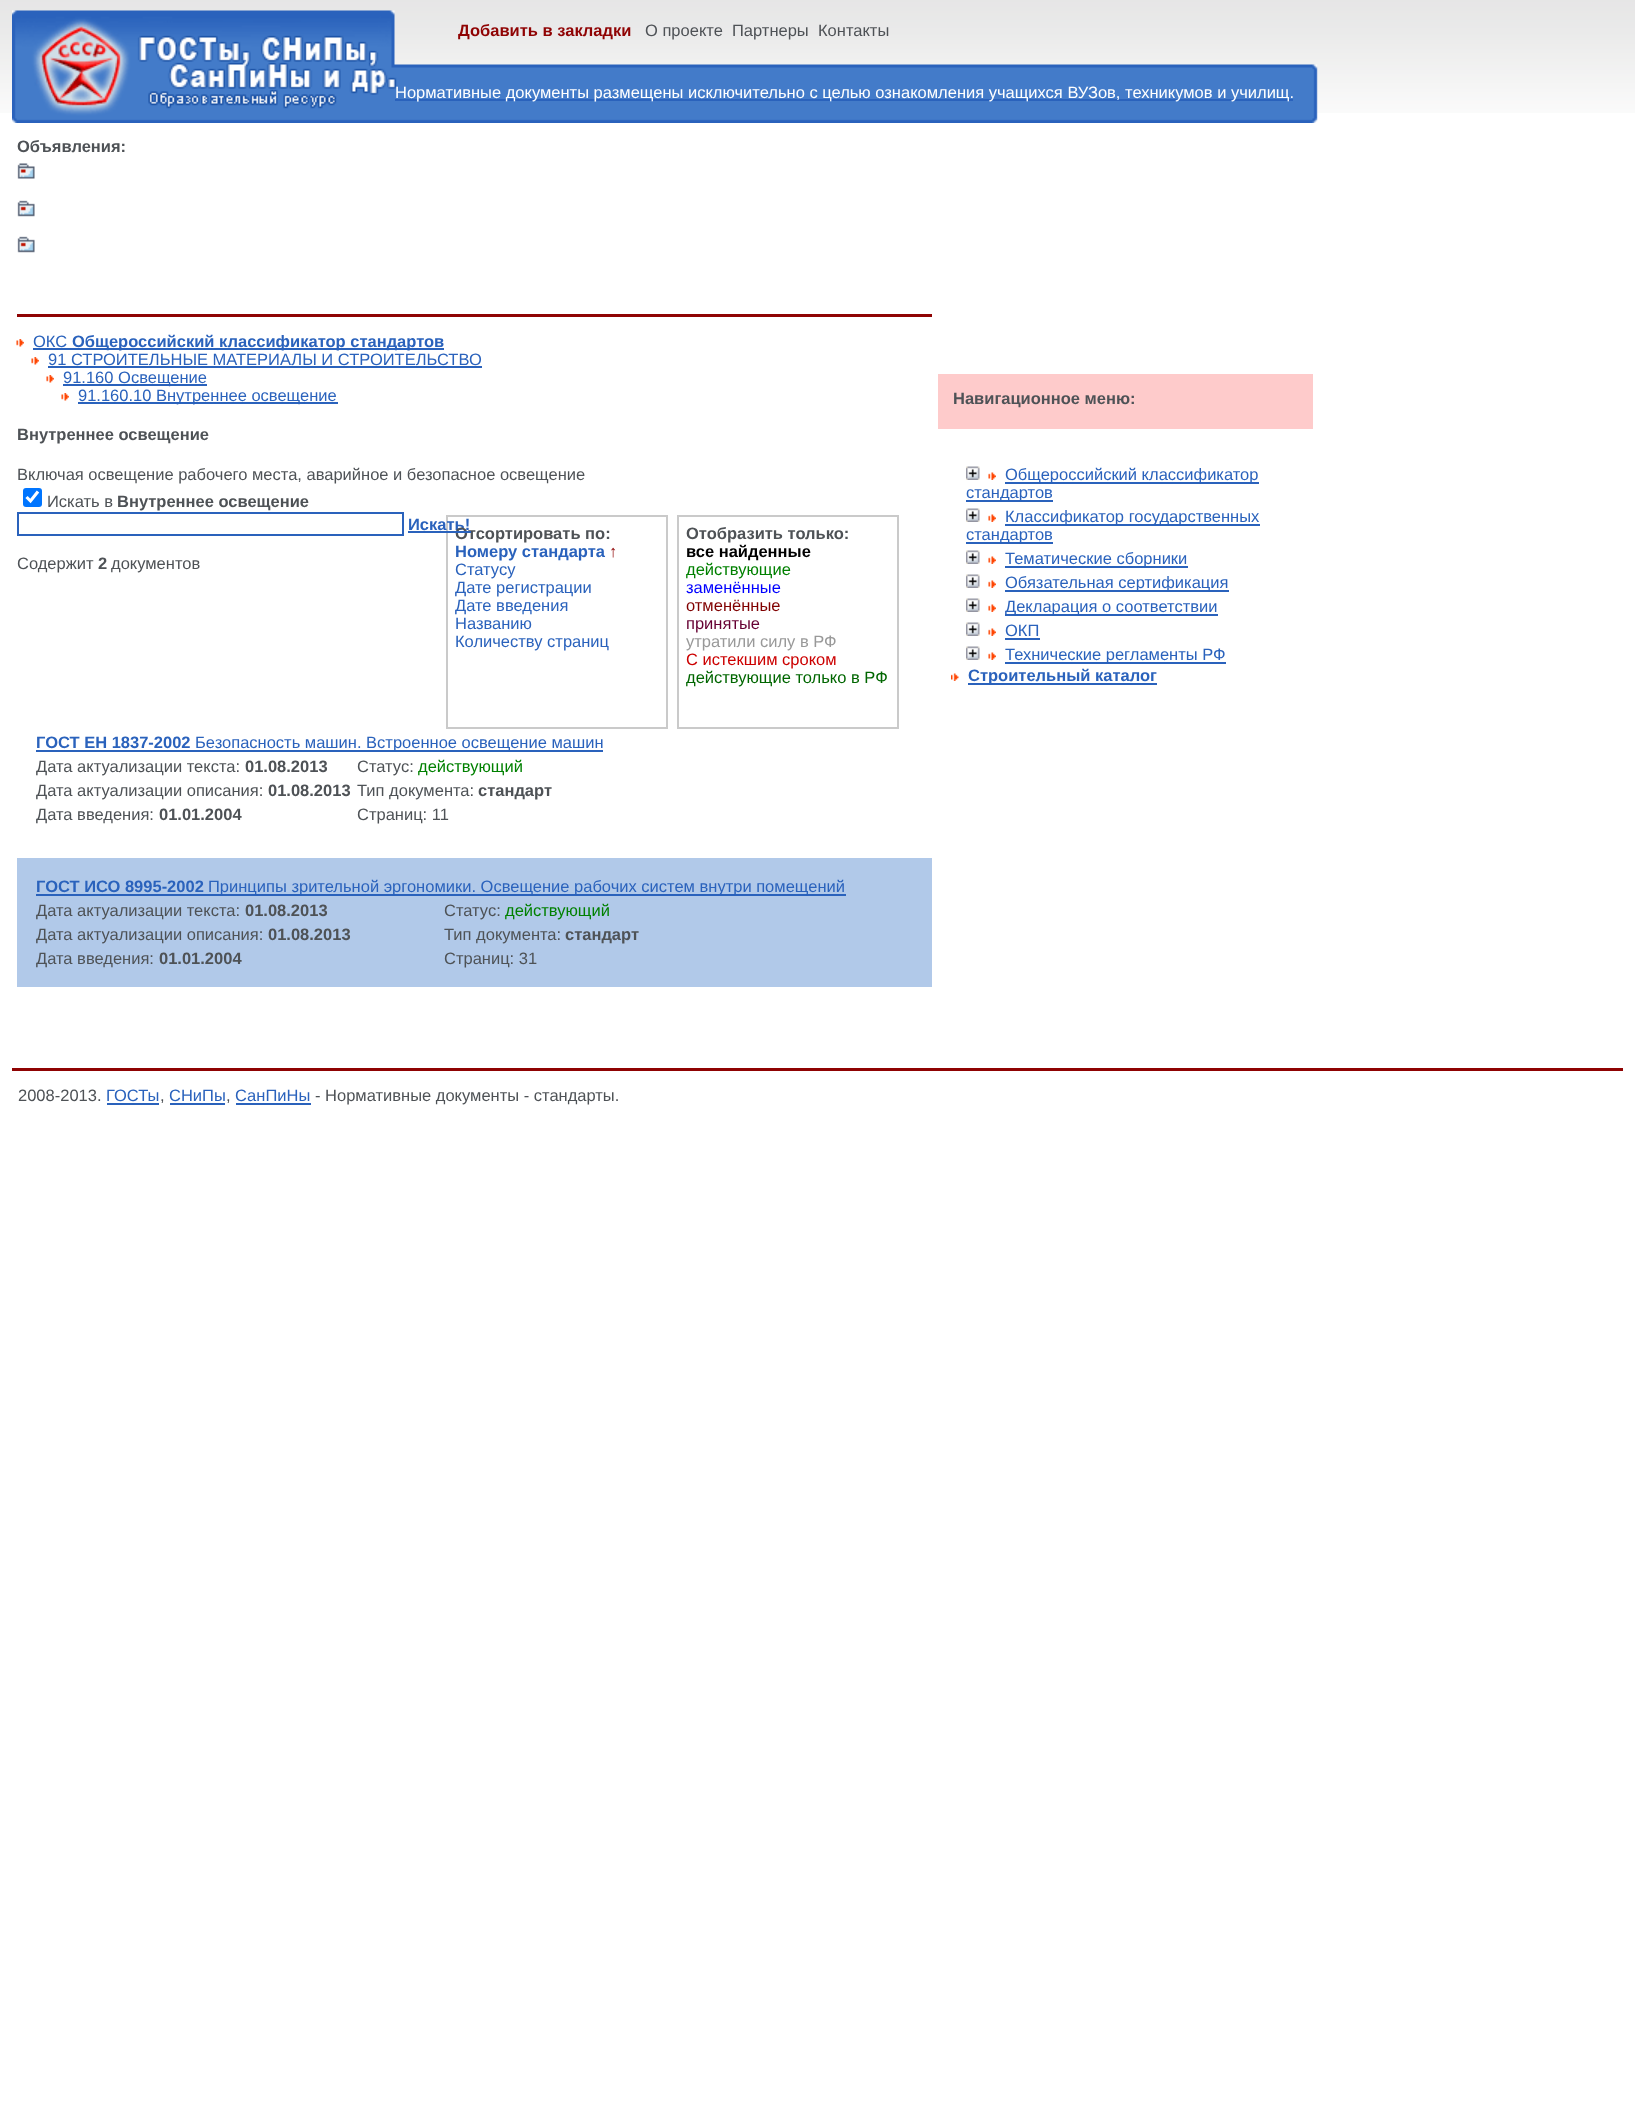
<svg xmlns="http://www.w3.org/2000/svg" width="1635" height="2113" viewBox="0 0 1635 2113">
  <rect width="100%" height="100%" fill="#ffffff"/>
  <image x="0" y="0" width="1635" height="113" href="img1.png"/>
  <image x="12" y="10" width="1306" height="113" href="img2.png"/>
  <text x="458" y="36" font-family="Liberation Sans" font-size="16.5" font-weight="bold" fill="#8f0303">Добавить в закладки</text>
  <text x="645" y="36" font-family="Liberation Sans" font-size="16.5" fill="#4e5256">О проекте</text>
  <text x="732" y="36" font-family="Liberation Sans" font-size="16.5" fill="#4e5256">Партнеры</text>
  <text x="818" y="36" font-family="Liberation Sans" font-size="16.5" fill="#4e5256">Контакты</text>
  <rect x="395" y="99" width="898" height="2" fill="#2a62bc"/>
  <text x="395" y="98" font-family="Liberation Sans" font-size="16.5" fill="#ffffff">Нормативные документы размещены исключительно с целью ознакомления учащихся ВУЗов, техникумов и училищ.</text>
  <text x="17" y="152" font-family="Liberation Sans" font-size="16.5" font-weight="bold" fill="#4e5256">Объявления:</text>
  <image x="17" y="163" width="18" height="90" href="img3.png"/>
  <rect x="17" y="314" width="915" height="3" fill="#8f0303"/>
  <image x="16" y="339" width="8" height="8" href="img4.png"/>
  <text x="33" y="347" font-family="Liberation Sans" font-size="16.5" fill="#2a62bc">ОКС</text>
  <rect x="33" y="348" width="411" height="2" fill="#2a62bc"/>
  <text x="72" y="347" font-family="Liberation Sans" font-size="16.5" font-weight="bold" fill="#2a62bc">Общероссийский классификатор стандартов</text>
  <image x="31" y="357" width="8" height="8" href="img4.png"/>
  <text x="48" y="365" font-family="Liberation Sans" font-size="16.5" fill="#2a62bc">91 СТРОИТЕЛЬНЫЕ МАТЕРИАЛЫ И СТРОИТЕЛЬСТВО</text>
  <rect x="48" y="366" width="434" height="2" fill="#2a62bc"/>
  <image x="46" y="375" width="8" height="8" href="img4.png"/>
  <rect x="63" y="384" width="144" height="2" fill="#2a62bc"/>
  <text x="63" y="383" font-family="Liberation Sans" font-size="16.5" fill="#2a62bc">91.160 Освещение</text>
  <image x="61" y="393" width="8" height="8" href="img4.png"/>
  <rect x="78" y="402" width="260" height="2" fill="#2a62bc"/>
  <text x="78" y="401" font-family="Liberation Sans" font-size="16.5" fill="#2a62bc">91.160.10 Внутреннее освещение</text>
  <text x="17" y="440" font-family="Liberation Sans" font-size="16.5" font-weight="bold" fill="#4e5256">Внутреннее освещение</text>
  <text x="17" y="480" font-family="Liberation Sans" font-size="16.5" fill="#4e5256">Включая освещение рабочего места, аварийное и безопасное освещение</text>
  <rect x="23" y="488" width="19" height="19" rx="3" fill="#0075ff"/>
  <path d="M26.5 497L30.5 501L38 491.5" fill="none" stroke="#ffffff" stroke-width="3.1"/>
  <text x="47" y="507" font-family="Liberation Sans" font-size="16.5" fill="#4e5256">Искать в</text>
  <text x="117" y="507" font-family="Liberation Sans" font-size="16.5" font-weight="bold" fill="#4e5256">Внутреннее освещение</text>
  <rect x="18" y="513" width="385" height="22" fill="none" stroke="#2a62bc" stroke-width="2"/>
  <rect x="447" y="516" width="220" height="212" fill="none" stroke="#cacaca" stroke-width="2"/>
  <text x="408" y="530" font-family="Liberation Sans" font-size="16.5" font-weight="bold" fill="#2a62bc">Искать!</text>
  <text x="455" y="539" font-family="Liberation Sans" font-size="16.5" font-weight="bold" fill="#4e5256">Отсортировать по:</text>
  <rect x="408" y="531" width="63" height="2" fill="#2a62bc"/>
  <text x="17" y="569" font-family="Liberation Sans" font-size="16.5" fill="#4e5256">Содержит</text>
  <text x="98" y="569" font-family="Liberation Sans" font-size="16.5" font-weight="bold" fill="#4e5256">2</text>
  <text x="111" y="569" font-family="Liberation Sans" font-size="16.5" fill="#4e5256">документов</text>
  <text x="455" y="557" font-family="Liberation Sans" font-size="16.5" font-weight="bold" fill="#2a62bc">Номеру стандарта</text>
  <text x="609" y="557" font-family="Liberation Sans" font-size="16.5" fill="#8f0303">↑</text>
  <text x="455" y="575" font-family="Liberation Sans" font-size="16.5" fill="#2a62bc">Статусу</text>
  <text x="455" y="593" font-family="Liberation Sans" font-size="16.5" fill="#2a62bc">Дате регистрации</text>
  <text x="455" y="611" font-family="Liberation Sans" font-size="16.5" fill="#2a62bc">Дате введения</text>
  <text x="455" y="629" font-family="Liberation Sans" font-size="16.5" fill="#2a62bc">Названию</text>
  <text x="455" y="647" font-family="Liberation Sans" font-size="16.5" fill="#2a62bc">Количеству страниц</text>
  <rect x="678" y="516" width="220" height="212" fill="none" stroke="#cacaca" stroke-width="2"/>
  <text x="686" y="539" font-family="Liberation Sans" font-size="16.5" font-weight="bold" fill="#4e5256">Отобразить только:</text>
  <text x="686" y="557" font-family="Liberation Sans" font-size="16.5" font-weight="bold" fill="#000000">все найденные</text>
  <text x="686" y="575" font-family="Liberation Sans" font-size="16.5" fill="#008000">действующие</text>
  <text x="686" y="593" font-family="Liberation Sans" font-size="16.5" fill="#0000ff">заменённые</text>
  <text x="686" y="611" font-family="Liberation Sans" font-size="16.5" fill="#800000">отменённые</text>
  <text x="686" y="629" font-family="Liberation Sans" font-size="16.5" fill="#660033">принятые</text>
  <text x="686" y="647" font-family="Liberation Sans" font-size="16.5" fill="#999999">утратили силу в РФ</text>
  <text x="686" y="665" font-family="Liberation Sans" font-size="16.5" fill="#cc0000">С истекшим сроком</text>
  <text x="686" y="683" font-family="Liberation Sans" font-size="16.5" fill="#006600">действующие только в РФ</text>
  <text x="36" y="748" font-family="Liberation Sans" font-size="16.5" font-weight="bold" fill="#2a62bc">ГОСТ ЕН 1837-2002</text>
  <rect x="36" y="750" width="567" height="2" fill="#2a62bc"/>
  <text x="195" y="748" font-family="Liberation Sans" font-size="16.5" fill="#2a62bc">Безопасность машин. Встроенное освещение машин</text>
  <text x="36" y="772" font-family="Liberation Sans" font-size="16.5" fill="#4e5256">Дата актуализации текста:</text>
  <text x="245" y="772" font-family="Liberation Sans" font-size="16.5" font-weight="bold" fill="#4e5256">01.08.2013</text>
  <text x="357" y="772" font-family="Liberation Sans" font-size="16.5" fill="#4e5256">Статус:</text>
  <text x="418" y="772" font-family="Liberation Sans" font-size="16.5" fill="#008000">действующий</text>
  <text x="36" y="796" font-family="Liberation Sans" font-size="16.5" fill="#4e5256">Дата актуализации описания:</text>
  <text x="268" y="796" font-family="Liberation Sans" font-size="16.5" font-weight="bold" fill="#4e5256">01.08.2013</text>
  <text x="357" y="796" font-family="Liberation Sans" font-size="16.5" fill="#4e5256">Тип документа:</text>
  <text x="478" y="796" font-family="Liberation Sans" font-size="16.5" font-weight="bold" fill="#4e5256">стандарт</text>
  <text x="36" y="820" font-family="Liberation Sans" font-size="16.5" fill="#4e5256">Дата введения:</text>
  <text x="159" y="820" font-family="Liberation Sans" font-size="16.5" font-weight="bold" fill="#4e5256">01.01.2004</text>
  <text x="357" y="820" font-family="Liberation Sans" font-size="16.5" fill="#4e5256">Страниц: 11</text>
  <rect x="17" y="858" width="915" height="129" fill="#b1c9e9"/>
  <text x="36" y="892" font-family="Liberation Sans" font-size="16.5" font-weight="bold" fill="#2a62bc">ГОСТ ИСО 8995-2002</text>
  <rect x="36" y="894" width="810" height="2" fill="#2a62bc"/>
  <text x="208" y="892" font-family="Liberation Sans" font-size="16.5" fill="#2a62bc">Принципы зрительной эргономики. Освещение рабочих систем внутри помещений</text>
  <text x="36" y="916" font-family="Liberation Sans" font-size="16.5" fill="#4e5256">Дата актуализации текста:</text>
  <text x="245" y="916" font-family="Liberation Sans" font-size="16.5" font-weight="bold" fill="#4e5256">01.08.2013</text>
  <text x="444" y="916" font-family="Liberation Sans" font-size="16.5" fill="#4e5256">Статус:</text>
  <text x="505" y="916" font-family="Liberation Sans" font-size="16.5" fill="#008000">действующий</text>
  <text x="36" y="940" font-family="Liberation Sans" font-size="16.5" fill="#4e5256">Дата актуализации описания:</text>
  <text x="268" y="940" font-family="Liberation Sans" font-size="16.5" font-weight="bold" fill="#4e5256">01.08.2013</text>
  <text x="444" y="940" font-family="Liberation Sans" font-size="16.5" fill="#4e5256">Тип документа:</text>
  <text x="565" y="940" font-family="Liberation Sans" font-size="16.5" font-weight="bold" fill="#4e5256">стандарт</text>
  <text x="36" y="964" font-family="Liberation Sans" font-size="16.5" fill="#4e5256">Дата введения:</text>
  <text x="159" y="964" font-family="Liberation Sans" font-size="16.5" font-weight="bold" fill="#4e5256">01.01.2004</text>
  <text x="444" y="964" font-family="Liberation Sans" font-size="16.5" fill="#4e5256">Страниц: 31</text>
  <rect x="938" y="374" width="375" height="55" fill="#fecbcb"/>
  <text x="953" y="404" font-family="Liberation Sans" font-size="16.5" font-weight="bold" fill="#4e5256">Навигационное меню:</text>
  <image x="966" y="466" width="14" height="14" href="img5.png"/>
  <image x="988" y="472" width="8" height="8" href="img6.png"/>
  <rect x="1005" y="482" width="254" height="2" fill="#2a62bc"/>
  <text x="1005" y="480" font-family="Liberation Sans" font-size="16.5" fill="#2a62bc">Общероссийский классификатор</text>
  <rect x="966" y="500" width="87" height="2" fill="#2a62bc"/>
  <text x="966" y="498" font-family="Liberation Sans" font-size="16.5" fill="#2a62bc">стандартов</text>
  <image x="966" y="508" width="14" height="14" href="img5.png"/>
  <image x="988" y="514" width="8" height="8" href="img6.png"/>
  <rect x="1005" y="524" width="255" height="2" fill="#2a62bc"/>
  <text x="1005" y="522" font-family="Liberation Sans" font-size="16.5" fill="#2a62bc">Классификатор государственных</text>
  <rect x="966" y="542" width="87" height="2" fill="#2a62bc"/>
  <text x="966" y="540" font-family="Liberation Sans" font-size="16.5" fill="#2a62bc">стандартов</text>
  <image x="966" y="550" width="14" height="14" href="img5.png"/>
  <image x="988" y="556" width="8" height="8" href="img6.png"/>
  <rect x="1005" y="566" width="183" height="2" fill="#2a62bc"/>
  <text x="1005" y="564" font-family="Liberation Sans" font-size="16.5" fill="#2a62bc">Тематические сборники</text>
  <image x="966" y="574" width="14" height="14" href="img5.png"/>
  <image x="988" y="580" width="8" height="8" href="img6.png"/>
  <rect x="1005" y="590" width="224" height="2" fill="#2a62bc"/>
  <text x="1005" y="588" font-family="Liberation Sans" font-size="16.5" fill="#2a62bc">Обязательная сертификация</text>
  <image x="966" y="598" width="14" height="14" href="img5.png"/>
  <image x="988" y="604" width="8" height="8" href="img6.png"/>
  <rect x="1005" y="614" width="213" height="2" fill="#2a62bc"/>
  <text x="1005" y="612" font-family="Liberation Sans" font-size="16.5" fill="#2a62bc">Декларация о соответствии</text>
  <image x="966" y="622" width="14" height="14" href="img5.png"/>
  <image x="988" y="628" width="8" height="8" href="img6.png"/>
  <text x="1005" y="636" font-family="Liberation Sans" font-size="16.5" fill="#2a62bc">ОКП</text>
  <rect x="1005" y="638" width="35" height="2" fill="#2a62bc"/>
  <image x="966" y="646" width="14" height="14" href="img5.png"/>
  <image x="988" y="652" width="8" height="8" href="img6.png"/>
  <rect x="1005" y="662" width="221" height="2" fill="#2a62bc"/>
  <text x="1005" y="660" font-family="Liberation Sans" font-size="16.5" fill="#2a62bc">Технические регламенты РФ</text>
  <image x="951" y="673" width="8" height="8" href="img7.png"/>
  <rect x="968" y="683" width="189" height="2" fill="#2a62bc"/>
  <text x="968" y="681" font-family="Liberation Sans" font-size="16.5" font-weight="bold" fill="#2a62bc">Строительный каталог</text>
  <rect x="12" y="1068" width="1611" height="3" fill="#8f0303"/>
  <text x="18" y="1101" font-family="Liberation Sans" font-size="16.5" fill="#4e5256">2008-2013.</text>
  <text x="106" y="1101" font-family="Liberation Sans" font-size="16.5" fill="#2a62bc">ГОСТы</text>
  <rect x="107" y="1103" width="52" height="2" fill="#2a62bc"/>
  <text x="160" y="1101" font-family="Liberation Sans" font-size="16.5" fill="#4e5256">,</text>
  <text x="169" y="1101" font-family="Liberation Sans" font-size="16.5" fill="#2a62bc">СНиПы</text>
  <rect x="170" y="1103" width="55" height="2" fill="#2a62bc"/>
  <text x="226" y="1101" font-family="Liberation Sans" font-size="16.5" fill="#4e5256">,</text>
  <text x="235" y="1101" font-family="Liberation Sans" font-size="16.5" fill="#2a62bc">СанПиНы</text>
  <rect x="236" y="1103" width="75" height="2" fill="#2a62bc"/>
  <text x="315" y="1101" font-family="Liberation Sans" font-size="16.5" fill="#4e5256">- Нормативные документы - стандарты.</text>
</svg>
